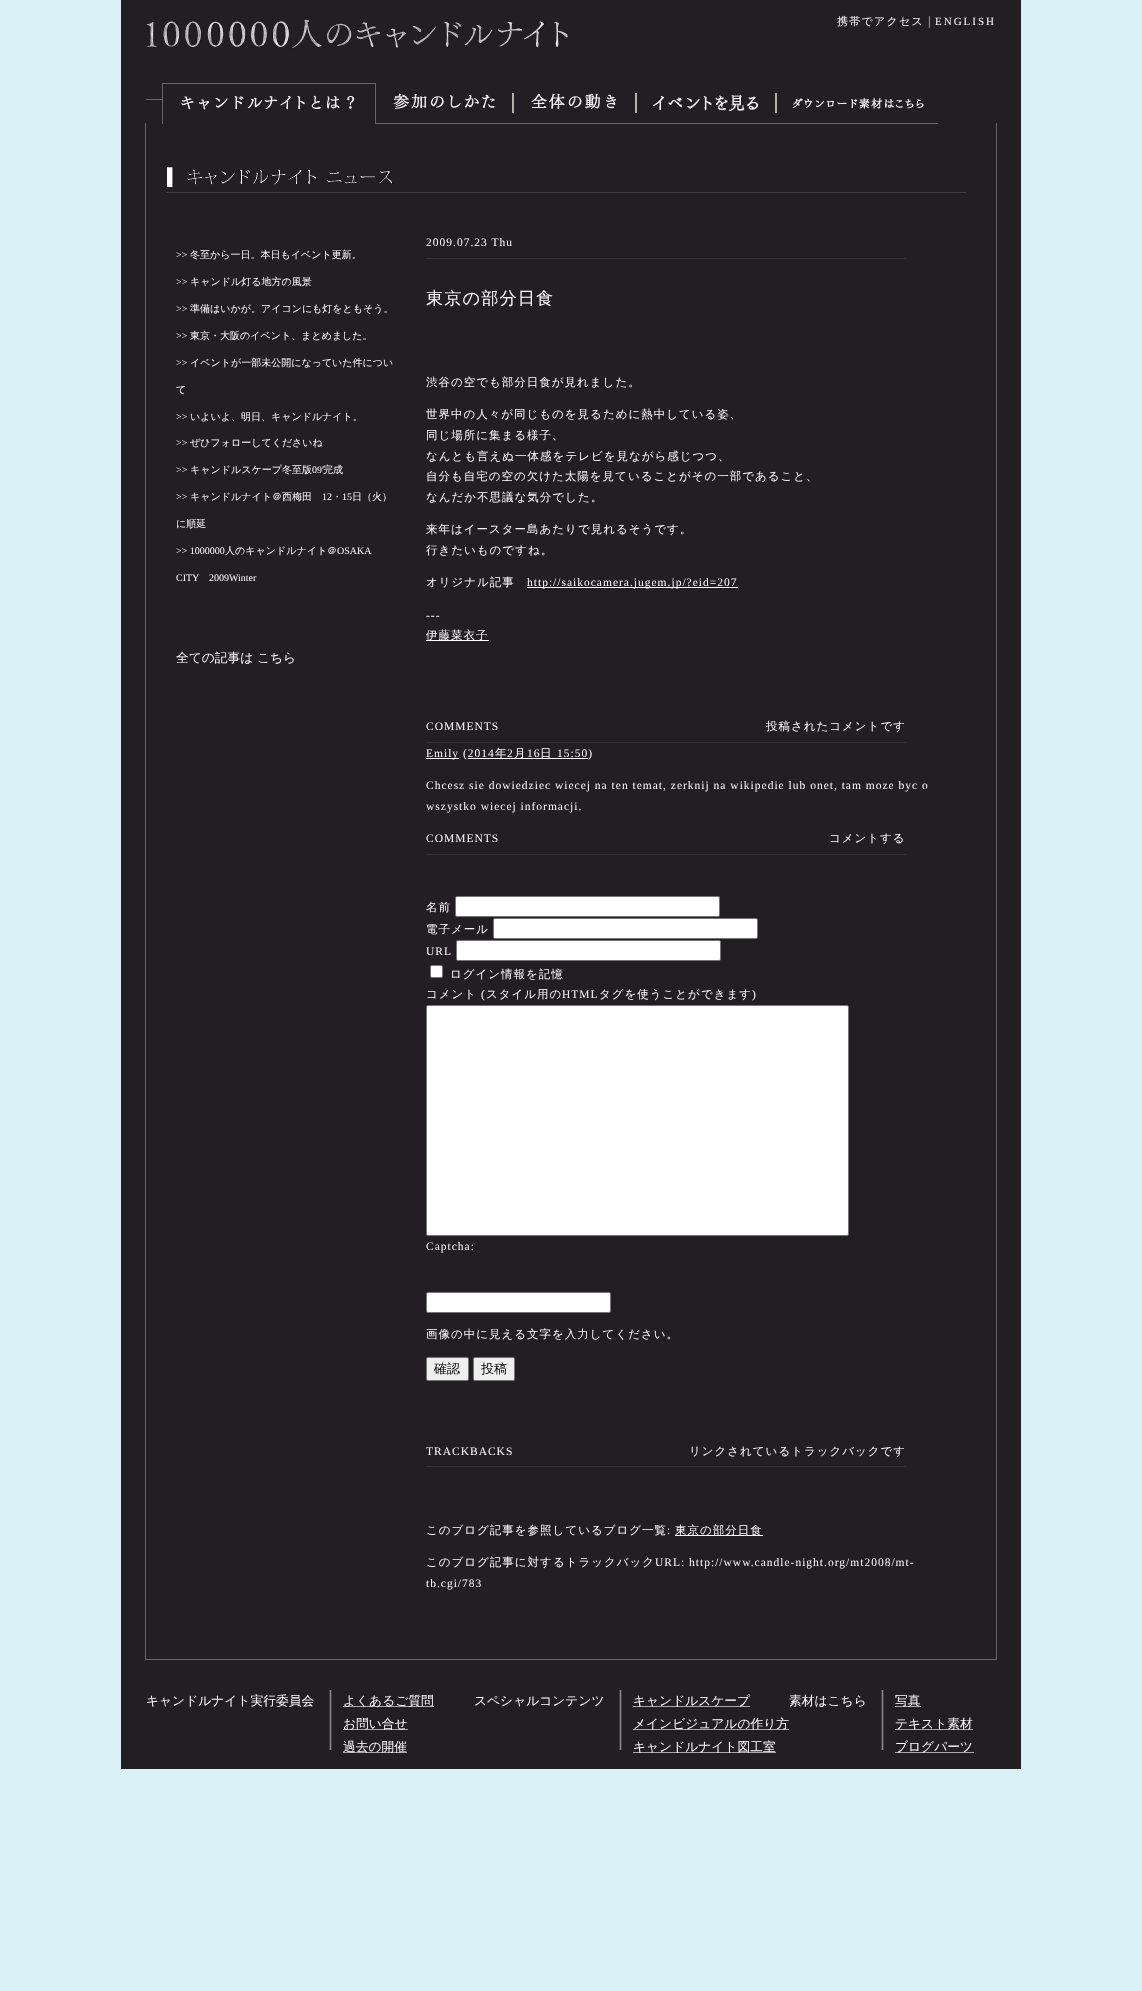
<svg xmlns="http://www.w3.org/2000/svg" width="1142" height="1991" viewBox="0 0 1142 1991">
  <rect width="100%" height="100%" fill="#d9f1f7"/>
  <rect x="121" y="0" width="900" height="1769" fill="#221f22"/>
  <image x="146" y="19" width="422" height="30" href="img1.png"/>
  <text x="837" y="25" font-family="WenQuanYi Zen Hei" font-size="11" font-weight="500" letter-spacing="1.25" fill="#ffffff">携帯でアクセス</text>
  <text x="928" y="25" font-family="Liberation Serif" font-size="12.75" letter-spacing="1" fill="#cccccc">|</text>
  <text x="935" y="25" font-family="Liberation Serif" font-size="11" letter-spacing="2" fill="#ffffff">ENGLISH</text>
  <rect x="162" y="83" width="214" height="1" fill="#666666"/>
  <rect x="375" y="83" width="1" height="41" fill="#666666"/>
  <rect x="162" y="83" width="1" height="41" fill="#666666"/>
  <image x="181" y="95" width="174" height="15" href="img2.png"/>
  <rect x="376" y="123" width="138" height="1" fill="#666666"/>
  <rect x="512" y="93" width="2" height="20" fill="#b6b0ac"/>
  <image x="393" y="93" width="102" height="16" href="img3.png"/>
  <rect x="514" y="123" width="123" height="1" fill="#666666"/>
  <rect x="635" y="93" width="2" height="20" fill="#b6b0ac"/>
  <image x="531" y="93" width="85" height="16" href="img4.png"/>
  <rect x="637" y="123" width="301" height="1" fill="#666666"/>
  <rect x="775" y="93" width="2" height="20" fill="#b6b0ac"/>
  <rect x="146" y="99" width="16" height="1" fill="#666666"/>
  <image x="653" y="95" width="105" height="16" href="img5.png"/>
  <image x="792" y="98" width="132" height="11" href="img6.png"/>
  <rect x="996" y="123" width="1" height="1537" fill="#666666"/>
  <rect x="145" y="1659" width="852" height="1" fill="#666666"/>
  <rect x="145" y="123" width="1" height="1537" fill="#666666"/>
  <image x="166" y="167" width="800" height="26" href="img7.png"/>
  <text x="176" y="258" font-family="Liberation Serif" font-size="10" fill="#ffffff">&gt;&gt;</text>
  <text x="190" y="258" font-family="WenQuanYi Zen Hei" font-size="10" font-weight="500" fill="#ffffff">冬至から一日。本日もイベント更新。</text>
  <text x="176" y="285" font-family="Liberation Serif" font-size="10" fill="#ffffff">&gt;&gt;</text>
  <text x="190" y="285" font-family="WenQuanYi Zen Hei" font-size="10" font-weight="500" fill="#ffffff">キャンドル灯る地方の風景</text>
  <text x="176" y="312" font-family="Liberation Serif" font-size="10" fill="#ffffff">&gt;&gt;</text>
  <text x="190" y="312" font-family="WenQuanYi Zen Hei" font-size="10" font-weight="500" fill="#ffffff">準備はいかが。アイコンにも灯をともそう。</text>
  <text x="176" y="339" font-family="Liberation Serif" font-size="10" fill="#ffffff">&gt;&gt;</text>
  <text x="190" y="339" font-family="WenQuanYi Zen Hei" font-size="10" font-weight="500" fill="#ffffff">東京・大阪のイベント、まとめました。</text>
  <text x="176" y="366" font-family="Liberation Serif" font-size="10" fill="#ffffff">&gt;&gt;</text>
  <text x="190" y="366" font-family="WenQuanYi Zen Hei" font-size="10" font-weight="500" fill="#ffffff">イベントが一部未公開になっていた件につい</text>
  <text x="176" y="393" font-family="WenQuanYi Zen Hei" font-size="10" font-weight="500" fill="#ffffff">て</text>
  <text x="176" y="420" font-family="Liberation Serif" font-size="10" fill="#ffffff">&gt;&gt;</text>
  <text x="190" y="420" font-family="WenQuanYi Zen Hei" font-size="10" font-weight="500" fill="#ffffff">いよいよ、明日、キャンドルナイト。</text>
  <text x="176" y="446" font-family="Liberation Serif" font-size="10" fill="#ffffff">&gt;&gt;</text>
  <text x="190" y="446" font-family="WenQuanYi Zen Hei" font-size="10" font-weight="500" fill="#ffffff">ぜひフォローしてくださいね</text>
  <text x="176" y="473" font-family="Liberation Serif" font-size="10" fill="#ffffff">&gt;&gt;</text>
  <text x="190" y="473" font-family="WenQuanYi Zen Hei" font-size="10" font-weight="500" fill="#ffffff">キャンドルスケープ冬至版</text>
  <text x="312" y="473" font-family="Liberation Serif" font-size="10" fill="#ffffff">09'</text>
  <text x="323" y="473" font-family="WenQuanYi Zen Hei" font-size="10" font-weight="500" fill="#ffffff">完成</text>
  <text x="176" y="500" font-family="Liberation Serif" font-size="10" fill="#ffffff">&gt;&gt;</text>
  <text x="190" y="500" font-family="WenQuanYi Zen Hei" font-size="10" font-weight="500" fill="#ffffff">キャンドルナイト＠西梅田</text>
  <text x="322" y="500" font-family="Liberation Serif" font-size="10" fill="#ffffff">12</text>
  <text x="332" y="500" font-family="WenQuanYi Zen Hei" font-size="10" font-weight="500" fill="#ffffff">・</text>
  <text x="342" y="500" font-family="Liberation Serif" font-size="10" fill="#ffffff">15</text>
  <text x="352" y="500" font-family="WenQuanYi Zen Hei" font-size="10" font-weight="500" fill="#ffffff">日（火）</text>
  <text x="176" y="527" font-family="WenQuanYi Zen Hei" font-size="10" font-weight="500" fill="#ffffff">に順延</text>
  <text x="176" y="554" font-family="Liberation Serif" font-size="10" fill="#ffffff">&gt;&gt; 1000000</text>
  <text x="225" y="554" font-family="WenQuanYi Zen Hei" font-size="10" font-weight="500" fill="#ffffff">人のキャンドルナイト＠</text>
  <text x="337" y="554" font-family="Liberation Serif" font-size="10" fill="#ffffff">OSAKA</text>
  <text x="176" y="581" font-family="Liberation Serif" font-size="10" fill="#ffffff">CITY</text>
  <text x="209" y="581" font-family="Liberation Serif" font-size="10" fill="#ffffff">2009Winter</text>
  <text x="176" y="662" font-family="WenQuanYi Zen Hei" font-size="12.75" font-weight="500" fill="#ffffff">全ての記事は</text>
  <text x="257" y="662" font-family="WenQuanYi Zen Hei" font-size="12.75" font-weight="500" fill="#ffffff">こちら</text>
  <rect x="426" y="258" width="480" height="1" fill="#333333"/>
  <text x="426" y="246" font-family="Liberation Serif" font-size="11.5" letter-spacing="1" fill="#ffffff">2009.07.23 Thu</text>
  <text x="426" y="304" font-family="WenQuanYi Zen Hei" font-size="17.25" font-weight="500" letter-spacing="1" fill="#ffffff">東京の部分日食</text>
  <text x="426" y="386" font-family="WenQuanYi Zen Hei" font-size="11.5" font-weight="500" letter-spacing="1" fill="#ffffff">渋谷の空でも部分日食が見れました。</text>
  <text x="426" y="418" font-family="WenQuanYi Zen Hei" font-size="11.5" font-weight="500" letter-spacing="1" fill="#ffffff">世界中の人々が同じものを見るために熱中している姿、</text>
  <text x="426" y="439" font-family="WenQuanYi Zen Hei" font-size="11.5" font-weight="500" letter-spacing="1" fill="#ffffff">同じ場所に集まる様子、</text>
  <text x="426" y="460" font-family="WenQuanYi Zen Hei" font-size="11.5" font-weight="500" letter-spacing="1" fill="#ffffff">なんとも言えぬ一体感をテレビを見ながら感じつつ、</text>
  <text x="426" y="480" font-family="WenQuanYi Zen Hei" font-size="11.5" font-weight="500" letter-spacing="1" fill="#ffffff">自分も自宅の空の欠けた太陽を見ていることがその一部であること、</text>
  <text x="426" y="501" font-family="WenQuanYi Zen Hei" font-size="11.5" font-weight="500" letter-spacing="1" fill="#ffffff">なんだか不思議な気分でした。</text>
  <text x="426" y="533" font-family="WenQuanYi Zen Hei" font-size="11.5" font-weight="500" letter-spacing="1" fill="#ffffff">来年はイースター島あたりで見れるそうです。</text>
  <text x="426" y="554" font-family="WenQuanYi Zen Hei" font-size="11.5" font-weight="500" letter-spacing="1" fill="#ffffff">行きたいものですね。</text>
  <text x="426" y="586" font-family="WenQuanYi Zen Hei" font-size="11.5" font-weight="500" letter-spacing="1" fill="#ffffff">オリジナル記事</text>
  <rect x="527" y="587" width="211" height="1" fill="#ffffff"/>
  <text x="527" y="586" font-family="Liberation Serif" font-size="11.5" letter-spacing="1" fill="#ffffff">http://saikocamera.jugem.jp/?eid=207</text>
  <text x="426" y="619" font-family="Liberation Serif" font-size="11.5" letter-spacing="1" fill="#ffffff">---</text>
  <rect x="426" y="640" width="63" height="1" fill="#ffffff"/>
  <text x="426" y="639" font-family="WenQuanYi Zen Hei" font-size="11.5" font-weight="500" letter-spacing="1" fill="#ffffff">伊藤菜衣子</text>
  <rect x="426" y="742" width="480" height="1" fill="#333333"/>
  <text x="426" y="730" font-family="Liberation Serif" font-size="11.5" letter-spacing="1" fill="#ffffff">COMMENTS</text>
  <text x="766" y="730" font-family="WenQuanYi Zen Hei" font-size="11.5" font-weight="500" letter-spacing="1" fill="#ffffff">投稿されたコメントです</text>
  <rect x="426" y="758" width="33" height="1" fill="#ffffff"/>
  <text x="426" y="757" font-family="Liberation Serif" font-size="11.5" letter-spacing="1" fill="#ffffff">Emily (2014</text>
  <rect x="468" y="758" width="120" height="1" fill="#ffffff"/>
  <text x="495" y="757" font-family="WenQuanYi Zen Hei" font-size="11.5" font-weight="500" letter-spacing="1" fill="#ffffff">年</text>
  <text x="507" y="757" font-family="Liberation Serif" font-size="11.5" letter-spacing="1" fill="#ffffff">2</text>
  <text x="514" y="757" font-family="WenQuanYi Zen Hei" font-size="11.5" font-weight="500" letter-spacing="1" fill="#ffffff">月</text>
  <text x="527" y="757" font-family="Liberation Serif" font-size="11.5" letter-spacing="1" fill="#ffffff">16</text>
  <text x="540" y="757" font-family="WenQuanYi Zen Hei" font-size="11.5" font-weight="500" letter-spacing="1" fill="#ffffff">日</text>
  <text x="557" y="757" font-family="Liberation Serif" font-size="11.5" letter-spacing="1" fill="#ffffff">15:50)</text>
  <text x="426" y="789" font-family="Liberation Serif" font-size="11.5" letter-spacing="1" fill="#ffffff">Chcesz sie dowiedziec wiecej na ten temat, zerknij na wikipedie lub onet, tam moze byc o</text>
  <text x="426" y="810" font-family="Liberation Serif" font-size="11.5" letter-spacing="1" fill="#ffffff">wszystko wiecej informacji.</text>
  <rect x="426" y="854" width="480" height="1" fill="#333333"/>
  <text x="426" y="842" font-family="Liberation Serif" font-size="11.5" letter-spacing="1" fill="#ffffff">COMMENTS</text>
  <text x="829" y="842" font-family="WenQuanYi Zen Hei" font-size="11.5" font-weight="500" letter-spacing="1" fill="#ffffff">コメントする</text>
  <text x="426" y="911" font-family="WenQuanYi Zen Hei" font-size="11.5" font-weight="500" letter-spacing="1" fill="#ffffff">名前</text>
  <rect x="455.5" y="896.5" width="264" height="20" rx="1.5" fill="#ffffff" stroke="#767676"/>
  <text x="426" y="933" font-family="WenQuanYi Zen Hei" font-size="11.5" font-weight="500" letter-spacing="1" fill="#ffffff">電子メール</text>
  <rect x="493.5" y="918.5" width="264" height="20" rx="1.5" fill="#ffffff" stroke="#767676"/>
  <text x="426" y="955" font-family="Liberation Serif" font-size="11.5" letter-spacing="1" fill="#ffffff">URL</text>
  <rect x="456.5" y="940.5" width="264" height="20" rx="1.5" fill="#ffffff" stroke="#767676"/>
  <rect x="430.5" y="965.5" width="12" height="12" rx="1.5" fill="#ffffff" stroke="#767676"/>
  <text x="450" y="978" font-family="WenQuanYi Zen Hei" font-size="11.5" font-weight="500" letter-spacing="1" fill="#ffffff">ログイン情報を記憶</text>
  <text x="426" y="998" font-family="WenQuanYi Zen Hei" font-size="11.5" font-weight="500" letter-spacing="1" fill="#ffffff">コメント</text>
  <text x="481" y="998" font-family="Liberation Serif" font-size="11.5" letter-spacing="1" fill="#ffffff">(</text>
  <text x="486" y="998" font-family="WenQuanYi Zen Hei" font-size="11.5" font-weight="500" letter-spacing="1" fill="#ffffff">スタイル用の</text>
  <text x="562" y="998" font-family="Liberation Serif" font-size="11.5" letter-spacing="1" fill="#ffffff">HTML</text>
  <text x="599" y="998" font-family="WenQuanYi Zen Hei" font-size="11.5" font-weight="500" letter-spacing="1" fill="#ffffff">タグを使うことができます</text>
  <text x="752" y="998" font-family="Liberation Serif" font-size="11.5" letter-spacing="1" fill="#ffffff">)</text>
  <rect x="426.5" y="1005.5" width="422" height="230" rx="1.5" fill="#ffffff" stroke="#767676"/>
  <text x="426" y="1250" font-family="Liberation Serif" font-size="11.5" letter-spacing="1" fill="#ffffff">Captcha:</text>
  <rect x="426.5" y="1292.5" width="184" height="20" rx="1.5" fill="#ffffff" stroke="#767676"/>
  <text x="426" y="1338" font-family="WenQuanYi Zen Hei" font-size="11.5" font-weight="500" letter-spacing="1" fill="#ffffff">画像の中に見える文字を入力してください。</text>
  <rect x="426.5" y="1357.5" width="42" height="23" rx="1.5" fill="#efefef" stroke="#767676"/>
  <text x="434" y="1373" font-family="WenQuanYi Zen Hei" font-size="13" font-weight="500" fill="#000000">確認</text>
  <rect x="473.5" y="1357.5" width="41" height="23" rx="1.5" fill="#efefef" stroke="#767676"/>
  <text x="481" y="1373" font-family="WenQuanYi Zen Hei" font-size="13" font-weight="500" fill="#000000">投稿</text>
  <rect x="426" y="1466" width="480" height="1" fill="#333333"/>
  <text x="426" y="1455" font-family="Liberation Serif" font-size="11.5" letter-spacing="1" fill="#ffffff">TRACKBACKS</text>
  <text x="689" y="1455" font-family="WenQuanYi Zen Hei" font-size="11.5" font-weight="500" letter-spacing="1" fill="#ffffff">リンクされているトラックバックです</text>
  <text x="426" y="1534" font-family="WenQuanYi Zen Hei" font-size="11.5" font-weight="500" letter-spacing="1" fill="#ffffff">このブログ記事を参照しているブログ一覧</text>
  <text x="667" y="1534" font-family="Liberation Serif" font-size="11.5" letter-spacing="1" fill="#ffffff">:</text>
  <rect x="675" y="1535" width="88" height="1" fill="#ffffff"/>
  <text x="675" y="1534" font-family="WenQuanYi Zen Hei" font-size="11.5" font-weight="500" letter-spacing="1" fill="#ffffff">東京の部分日食</text>
  <text x="426" y="1566" font-family="WenQuanYi Zen Hei" font-size="11.5" font-weight="500" letter-spacing="1" fill="#ffffff">このブログ記事に対するトラックバック</text>
  <text x="655" y="1566" font-family="Liberation Serif" font-size="11.5" letter-spacing="1" fill="#ffffff">URL: http://www.candle-night.org/mt2008/mt-</text>
  <text x="426" y="1587" font-family="Liberation Serif" font-size="11.5" letter-spacing="1" fill="#ffffff">tb.cgi/783</text>
  <text x="146" y="1705" font-family="WenQuanYi Zen Hei" font-size="12.75" font-weight="500" fill="#ffffff">キャンドルナイト実行委員会</text>
  <image x="329" y="1690" width="3" height="60" href="img8.png"/>
  <rect x="343" y="1706" width="91" height="1" fill="#aaaaaa"/>
  <text x="343" y="1705" font-family="WenQuanYi Zen Hei" font-size="12.75" font-weight="500" fill="#ffffff">よくあるご質問</text>
  <rect x="343" y="1729" width="65" height="1" fill="#aaaaaa"/>
  <text x="343" y="1728" font-family="WenQuanYi Zen Hei" font-size="12.75" font-weight="500" fill="#ffffff">お問い合せ</text>
  <rect x="343" y="1752" width="64" height="1" fill="#aaaaaa"/>
  <text x="343" y="1751" font-family="WenQuanYi Zen Hei" font-size="12.75" font-weight="500" fill="#ffffff">過去の開催</text>
  <text x="474" y="1705" font-family="WenQuanYi Zen Hei" font-size="12.75" font-weight="500" fill="#ffffff">スペシャルコンテンツ</text>
  <image x="619" y="1690" width="3" height="60" href="img8.png"/>
  <rect x="633" y="1706" width="117" height="1" fill="#aaaaaa"/>
  <text x="633" y="1705" font-family="WenQuanYi Zen Hei" font-size="12.75" font-weight="500" fill="#ffffff">キャンドルスケープ</text>
  <rect x="633" y="1729" width="156" height="1" fill="#aaaaaa"/>
  <text x="633" y="1728" font-family="WenQuanYi Zen Hei" font-size="12.75" font-weight="500" fill="#ffffff">メインビジュアルの作り方</text>
  <rect x="633" y="1752" width="143" height="1" fill="#aaaaaa"/>
  <text x="633" y="1751" font-family="WenQuanYi Zen Hei" font-size="12.75" font-weight="500" fill="#ffffff">キャンドルナイト図工室</text>
  <text x="789" y="1705" font-family="WenQuanYi Zen Hei" font-size="12.75" font-weight="500" fill="#ffffff">素材はこちら</text>
  <image x="881" y="1690" width="3" height="60" href="img8.png"/>
  <rect x="895" y="1706" width="26" height="1" fill="#aaaaaa"/>
  <text x="895" y="1705" font-family="WenQuanYi Zen Hei" font-size="12.75" font-weight="500" fill="#ffffff">写真</text>
  <rect x="895" y="1729" width="78" height="1" fill="#aaaaaa"/>
  <text x="895" y="1728" font-family="WenQuanYi Zen Hei" font-size="12.75" font-weight="500" fill="#ffffff">テキスト素材</text>
  <rect x="895" y="1752" width="79" height="1" fill="#aaaaaa"/>
  <text x="895" y="1751" font-family="WenQuanYi Zen Hei" font-size="12.75" font-weight="500" fill="#ffffff">ブログパーツ</text>
</svg>
